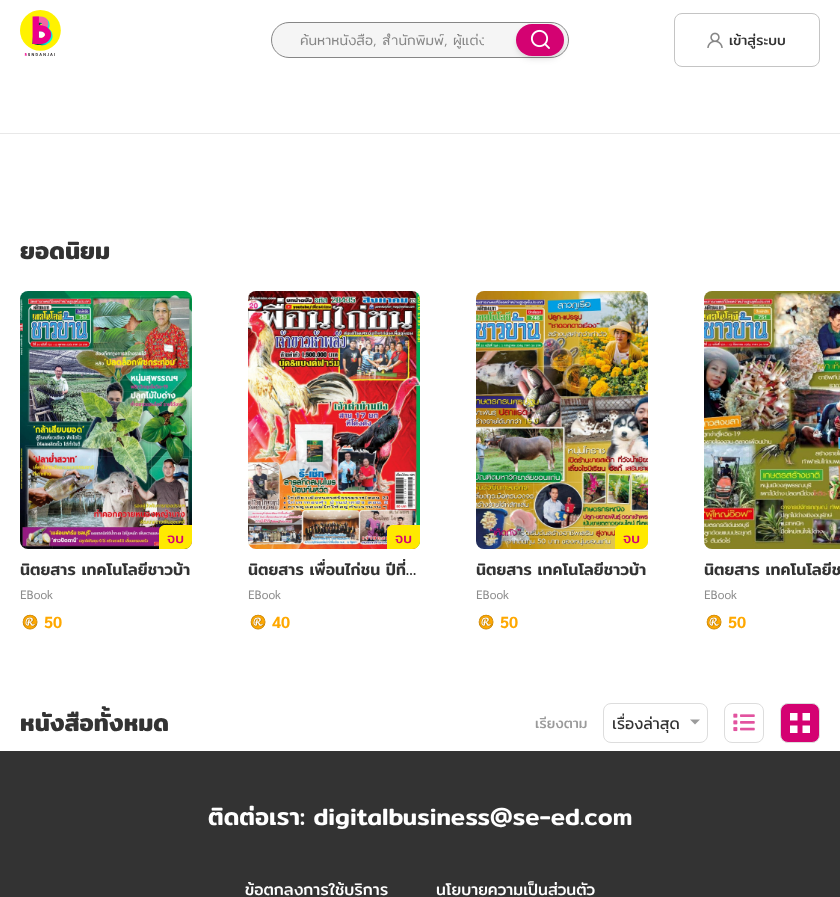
<svg xmlns="http://www.w3.org/2000/svg" width="840" height="897" viewBox="0 0 840 897">
  <defs>
    <clipPath id="clip1"><rect x="300" y="29" width="184" height="22"/></clipPath>
    <filter id="blur1" x="-50%" y="-200%" width="200%" height="500%"><feGaussianBlur stdDeviation="2"/></filter>
    <filter id="blur2" x="-50%" y="-200%" width="200%" height="500%"><feGaussianBlur stdDeviation="3"/></filter>
    <clipPath id="clip2"><rect x="20" y="559" width="172" height="22"/></clipPath>
    <clipPath id="clip3"><rect x="248" y="559" width="172" height="22"/></clipPath>
    <clipPath id="clip4"><rect x="476" y="559" width="172" height="22"/></clipPath>
    <clipPath id="clip5"><rect x="704" y="559" width="136" height="22"/></clipPath>
    <clipPath id="clip6"><rect x="612" y="711" width="70" height="24"/></clipPath>
  </defs>
  <rect width="100%" height="100%" fill="#ffffff"/>
  <image x="20" y="10" width="41" height="46" href="img1.png"/>
  <rect x="271.5" y="22.5" width="297" height="35" rx="17.5" fill="#f5f5f5" stroke="#868686"/>
  <g clip-path="url(#clip1)">
    <text x="300" y="45" font-family="Mitr" font-size="14" font-weight="300" fill="#868686">ค้นหาหนังสือ, สำนักพิมพ์, ผู้แต่ง</text>
  </g>
  <rect x="517" y="27" width="46" height="30" rx="15" fill="#000000" fill-opacity="0.06" filter="url(#blur1)"/>
  <rect x="517" y="29" width="46" height="30" rx="15" fill="#000000" fill-opacity="0.1" filter="url(#blur2)"/>
  <rect x="516" y="24" width="48" height="32" rx="16" fill="#d40272"/>
  <image x="530" y="29" width="20" height="20" href="img2.png"/>
  <rect x="674.5" y="13.5" width="145" height="53" rx="7.5" fill="none" stroke="#c4c4c4"/>
  <image x="707" y="32" width="16" height="16" href="img3.png"/>
  <text x="729" y="45" font-family="Mitr" font-size="14" fill="#333333">เข้าสู่ระบบ</text>
  <rect x="0" y="133" width="840" height="1" fill="#e8e8e8"/>
  <text x="20" y="259" font-family="Mitr" font-size="24" font-weight="600" fill="#333333">ยอดนิยม</text>
  <rect x="20" y="291" width="172" height="258" rx="8" fill="#fafafa"/>
  <image x="20" y="291" width="172" height="258" href="img4.png"/>
  <path d="M165 525H192V541C192 545.5 188.5 549 184 549H159V531C159 527.5 161.5 525 165 525Z" fill="#ffe900"/>
  <text x="167" y="543" font-family="Mitr" font-size="14" fill="#d40272">จบ</text>
  <g clip-path="url(#clip2)">
    <text x="20" y="575" font-family="Mitr" font-size="16" font-weight="500" fill="#333333">นิตยสาร เทคโนโลยีชาวบ้า</text>
  </g>
  <text x="20" y="599" font-family="Sarabun" font-size="12" fill="#8c8c8c">EBook</text>
  <image x="22" y="614" width="16" height="16" href="img5.png"/>
  <text x="44" y="628" font-family="Sarabun" font-size="16" font-weight="bold" fill="#ffa800">50</text>
  <rect x="248" y="291" width="172" height="258" rx="8" fill="#fafafa"/>
  <image x="248" y="291" width="172" height="258" href="img6.png"/>
  <path d="M393 525H420V541C420 545.5 416.5 549 412 549H387V531C387 527.5 389.5 525 393 525Z" fill="#ffe900"/>
  <text x="395" y="543" font-family="Mitr" font-size="14" fill="#d40272">จบ</text>
  <g clip-path="url(#clip3)">
    <text x="248" y="575" font-family="Mitr" font-size="16" font-weight="500" fill="#333333">นิตยสาร เพื่อนไก่ชน ปีที่…</text>
  </g>
  <text x="248" y="599" font-family="Sarabun" font-size="12" fill="#8c8c8c">EBook</text>
  <image x="250" y="614" width="16" height="16" href="img7.png"/>
  <text x="272" y="628" font-family="Sarabun" font-size="16" font-weight="bold" fill="#ffa800">40</text>
  <rect x="476" y="291" width="172" height="258" rx="8" fill="#fafafa"/>
  <image x="476" y="291" width="172" height="258" href="img8.png"/>
  <path d="M621 525H648V541C648 545.5 644.5 549 640 549H615V531C615 527.5 617.5 525 621 525Z" fill="#ffe900"/>
  <text x="623" y="543" font-family="Mitr" font-size="14" fill="#d40272">จบ</text>
  <g clip-path="url(#clip4)">
    <text x="476" y="575" font-family="Mitr" font-size="16" font-weight="500" fill="#333333">นิตยสาร เทคโนโลยีชาวบ้า</text>
  </g>
  <text x="476" y="599" font-family="Sarabun" font-size="12" fill="#8c8c8c">EBook</text>
  <image x="478" y="614" width="16" height="16" href="img7.png"/>
  <text x="500" y="628" font-family="Sarabun" font-size="16" font-weight="bold" fill="#ffa800">50</text>
  <path d="M712 291H840V549H712C707.5 549 704 545.5 704 541V299C704 294.5 707.5 291 712 291Z" fill="#fafafa"/>
  <image x="704" y="291" width="136" height="258" href="img9.png"/>
  <g clip-path="url(#clip5)">
    <text x="704" y="575" font-family="Mitr" font-size="16" font-weight="500" fill="#333333">นิตยสาร เทคโนโลยีช</text>
  </g>
  <text x="704" y="599" font-family="Sarabun" font-size="12" fill="#8c8c8c">EBook</text>
  <image x="706" y="614" width="16" height="16" href="img10.png"/>
  <text x="728" y="628" font-family="Sarabun" font-size="16" font-weight="bold" fill="#ffa800">50</text>
  <text x="20" y="731" font-family="Mitr" font-size="24" font-weight="600" fill="#333333">หนังสือทั้งหมด</text>
  <text x="535" y="728" font-family="Mitr" font-size="14" fill="#9b9b9b">เรียงตาม</text>
  <rect x="603.5" y="703.5" width="104" height="39" rx="7.5" fill="none" stroke="#dddddd"/>
  <g clip-path="url(#clip6)">
    <text x="612" y="729" font-family="Kanit" font-size="16" fill="#333333">เรื่องล่าสุด</text>
  </g>
  <path d="M690 719.5H700L695 724.5Z" fill="#9b9b9b"/>
  <rect x="724.5" y="703.5" width="39" height="39" rx="7.5" fill="none" stroke="#dddddd"/>
  <image x="733" y="713" width="22" height="19" href="img11.png"/>
  <rect x="780.5" y="703.5" width="39" height="39" rx="7.5" fill="#d40272" stroke="#dddddd"/>
  <image x="790" y="713" width="20" height="20" href="img12.png"/>
  <rect x="0" y="751" width="840" height="146" fill="#333333"/>
  <text x="208" y="825" font-family="Mitr" font-size="24" font-weight="500" fill="#ffffff">ติดต่อเรา: digitalbusiness@se-ed.com</text>
  <text x="245" y="895" font-family="Mitr" font-size="16" fill="#ffffff">ข้อตกลงการใช้บริการ</text>
  <text x="436" y="895" font-family="Mitr" font-size="16" fill="#ffffff">นโยบายความเป็นส่วนตัว</text>
</svg>
